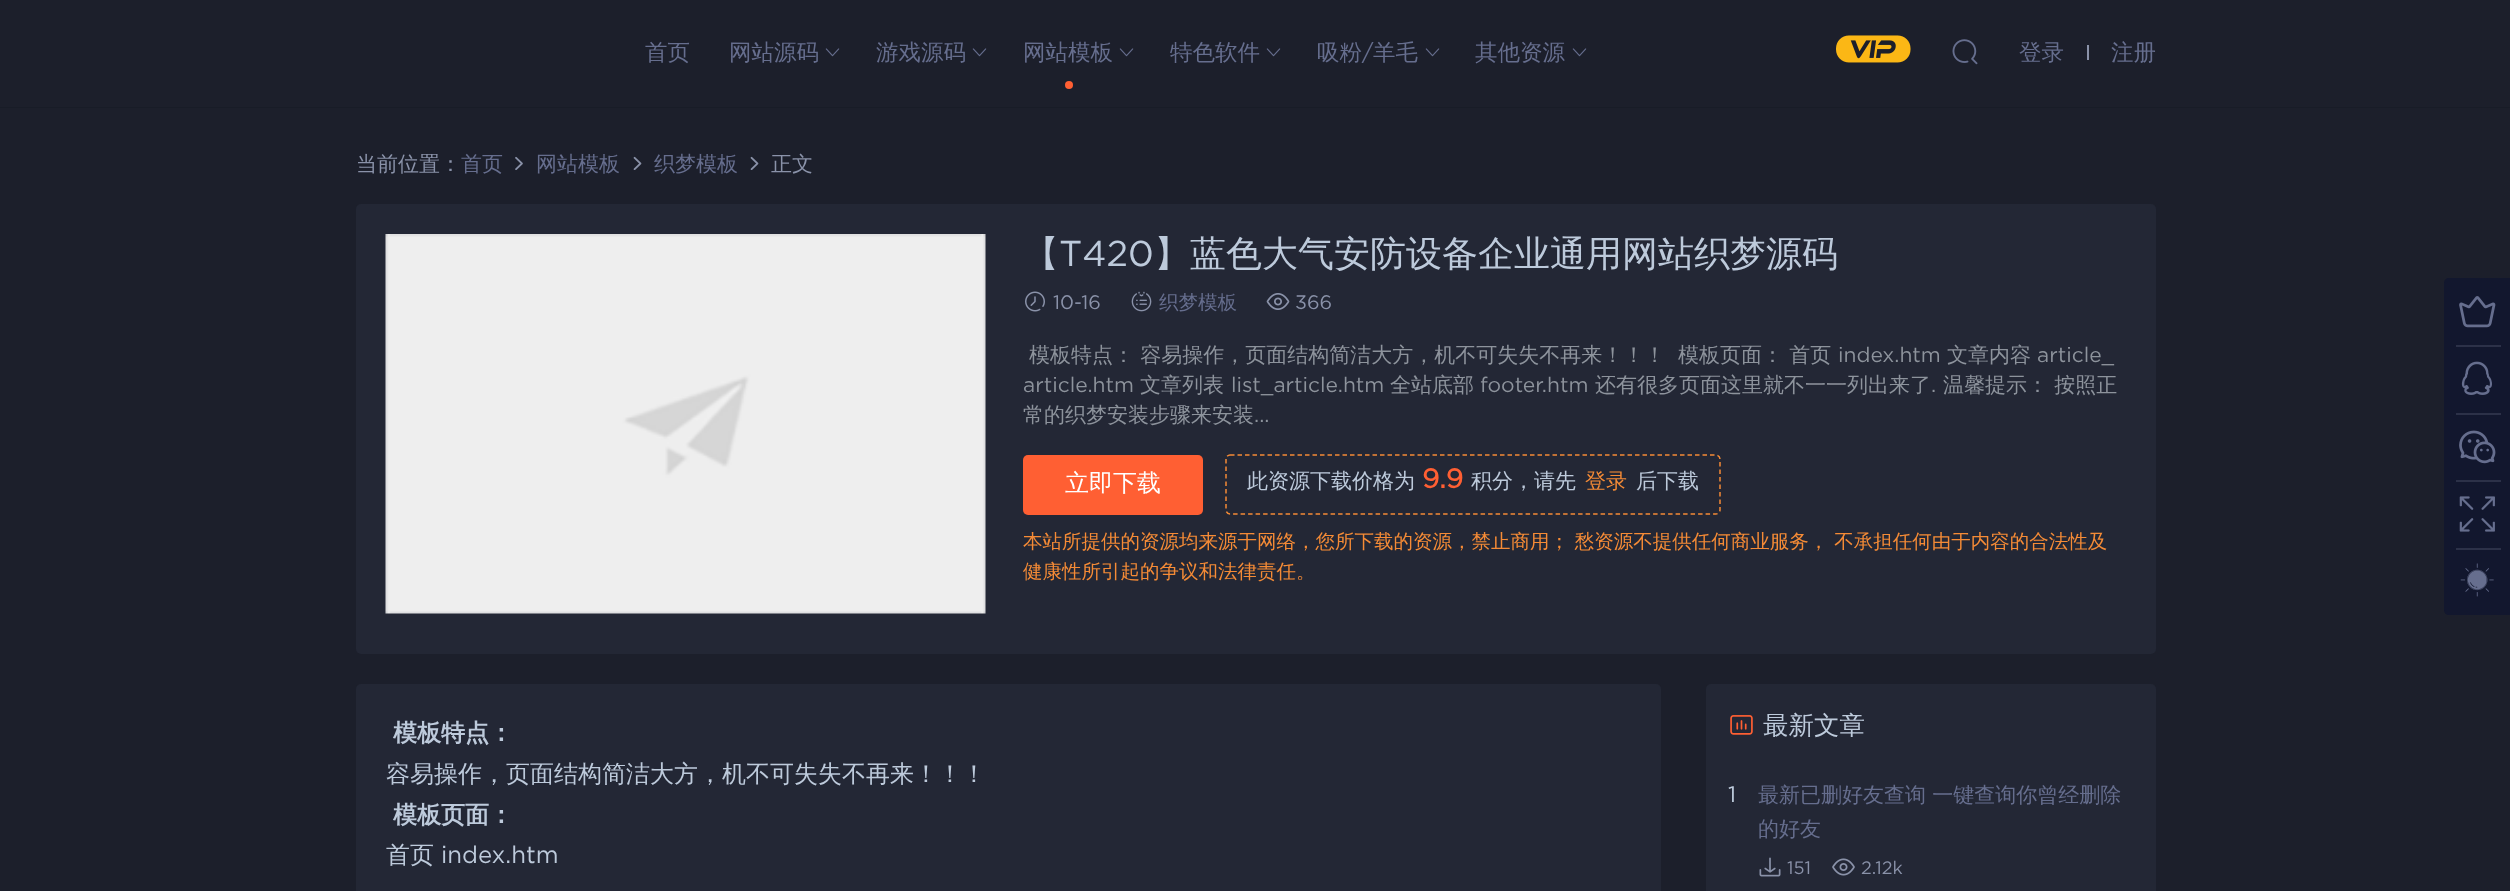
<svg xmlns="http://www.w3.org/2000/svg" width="2510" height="891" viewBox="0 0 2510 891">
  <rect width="100%" height="100%" fill="#1c1f2b"/>
  <rect x="0" y="107" width="2510" height="1" fill="#181c27"/>
  <text x="645" y="60" font-family="WenQuanYi Zen Hei" font-size="22.5" font-weight="500" fill="#666e8e">首页</text>
  <text x="729" y="60" font-family="WenQuanYi Zen Hei" font-size="22.5" font-weight="500" fill="#666e8e">网站源码</text>
  <image x="825" y="48" width="15" height="9" href="img1.png"/>
  <text x="876" y="60" font-family="WenQuanYi Zen Hei" font-size="22.5" font-weight="500" fill="#666e8e">游戏源码</text>
  <image x="972" y="48" width="15" height="9" href="img1.png"/>
  <text x="1023" y="60" font-family="WenQuanYi Zen Hei" font-size="22.5" font-weight="500" fill="#666e8e">网站模板</text>
  <circle cx="1069" cy="85" r="4" fill="#ff5f33"/>
  <image x="1119" y="48" width="15" height="9" href="img1.png"/>
  <text x="1170" y="60" font-family="WenQuanYi Zen Hei" font-size="22.5" font-weight="500" fill="#666e8e">特色软件</text>
  <image x="1266" y="48" width="15" height="9" href="img1.png"/>
  <text x="1317" y="60" font-family="WenQuanYi Zen Hei" font-size="22.5" font-weight="500" fill="#666e8e">吸粉</text>
  <text x="1362" y="60" font-family="Gotham" font-size="22.5" fill="#666e8e">/</text>
  <text x="1373" y="60" font-family="WenQuanYi Zen Hei" font-size="22.5" font-weight="500" fill="#666e8e">羊毛</text>
  <image x="1425" y="48" width="15" height="9" href="img1.png"/>
  <text x="1475" y="60" font-family="WenQuanYi Zen Hei" font-size="22.5" font-weight="500" fill="#666e8e">其他资源</text>
  <image x="1572" y="48" width="15" height="9" href="img1.png"/>
  <image x="1836" y="35" width="75" height="28" href="img2.png"/>
  <image x="1952" y="39" width="26" height="26" href="img3.png"/>
  <text x="2019" y="60" font-family="WenQuanYi Zen Hei" font-size="22.5" font-weight="500" fill="#666e8e">登录</text>
  <rect x="2087" y="45" width="2" height="15" fill="#8a92a9"/>
  <text x="2111" y="60" font-family="WenQuanYi Zen Hei" font-size="22.5" font-weight="500" fill="#666e8e">注册</text>
  <text x="356" y="171" font-family="WenQuanYi Zen Hei" font-size="21" font-weight="500" fill="#8a92a9">当前位置：</text>
  <text x="461" y="171" font-family="WenQuanYi Zen Hei" font-size="21" font-weight="500" fill="#666e8e">首页</text>
  <image x="515" y="156" width="8" height="14" href="img4.png"/>
  <text x="536" y="171" font-family="WenQuanYi Zen Hei" font-size="21" font-weight="500" fill="#666e8e">网站模板</text>
  <image x="633" y="156" width="9" height="14" href="img5.png"/>
  <text x="654" y="171" font-family="WenQuanYi Zen Hei" font-size="21" font-weight="500" fill="#666e8e">织梦模板</text>
  <image x="750" y="156" width="9" height="14" href="img5.png"/>
  <text x="771" y="171" font-family="WenQuanYi Zen Hei" font-size="21" font-weight="500" fill="#8a92a9">正文</text>
  <rect x="356" y="204" width="1800" height="450" rx="5" fill="#232735"/>
  <image x="385" y="234" width="601" height="380" href="img6.png"/>
  <text x="1023" y="266" font-family="WenQuanYi Zen Hei" font-size="36" font-weight="500" fill="#bdcadb">【</text>
  <text x="1059" y="266" font-family="Gotham" font-size="36" fill="#bdcadb">T420</text>
  <text x="1154" y="266" font-family="WenQuanYi Zen Hei" font-size="36" font-weight="500" fill="#bdcadb">】蓝色大气安防设备企业通用网站织梦源码</text>
  <image x="1025" y="291" width="20" height="21" href="img7.png"/>
  <text x="1053" y="309" font-family="Gotham" font-size="19.5" fill="#8a92a9">10-16</text>
  <image x="1131" y="291" width="21" height="21" href="img8.png"/>
  <text x="1159" y="309" font-family="WenQuanYi Zen Hei" font-size="19.5" font-weight="500" fill="#666e8e">织梦模板</text>
  <image x="1266" y="293" width="24" height="17" href="img9.png"/>
  <text x="1295" y="309" font-family="Gotham" font-size="19.5" fill="#8a92a9">366</text>
  <text x="1029" y="362" font-family="WenQuanYi Zen Hei" font-size="21" font-weight="500" fill="#8d939c">模板特点： 容易操作，页面结构简洁大方，机不可失失不再来！！！</text>
  <text x="1678" y="362" font-family="WenQuanYi Zen Hei" font-size="21" font-weight="500" fill="#8d939c">模板页面： 首页</text>
  <text x="1838" y="362" font-family="Gotham" font-size="21" fill="#8d939c">index.htm</text>
  <text x="1947" y="362" font-family="WenQuanYi Zen Hei" font-size="21" font-weight="500" fill="#8d939c">文章内容</text>
  <text x="2037" y="362" font-family="Gotham" font-size="21" fill="#8d939c">article_</text>
  <text x="1023" y="392" font-family="Gotham" font-size="21" fill="#8d939c">article.htm</text>
  <text x="1140" y="392" font-family="WenQuanYi Zen Hei" font-size="21" font-weight="500" fill="#8d939c">文章列表</text>
  <text x="1231" y="392" font-family="Gotham" font-size="21" fill="#8d939c">list_article.htm</text>
  <text x="1390" y="392" font-family="WenQuanYi Zen Hei" font-size="21" font-weight="500" fill="#8d939c">全站底部</text>
  <text x="1480" y="392" font-family="Gotham" font-size="21" fill="#8d939c">footer.htm</text>
  <text x="1595" y="392" font-family="WenQuanYi Zen Hei" font-size="21" font-weight="500" fill="#8d939c">还有很多页面这里就不一一列出来了</text>
  <text x="1931" y="392" font-family="Gotham" font-size="21" fill="#8d939c">.</text>
  <text x="1943" y="392" font-family="WenQuanYi Zen Hei" font-size="21" font-weight="500" fill="#8d939c">温馨提示： 按照正</text>
  <text x="1023" y="422" font-family="WenQuanYi Zen Hei" font-size="21" font-weight="500" fill="#8d939c">常的织梦安装步骤来安装</text>
  <text x="1254" y="422" font-family="Gotham" font-size="21" fill="#8d939c">...</text>
  <rect x="1023" y="455" width="180" height="60" rx="5" fill="#ff5f33"/>
  <text x="1065" y="491" font-family="WenQuanYi Zen Hei" font-size="24" font-weight="500" fill="#ffffff">立即下载</text>
  <path d="M1230 455H1716C1718 455 1720 457 1720 459V510C1720 512 1718 514 1716 514H1230C1228 514 1226 512 1226 510V459C1226 457 1228 455 1230 455Z" fill="none" stroke="#f58b36" stroke-width="1.5" stroke-dasharray="4.5 3"/>
  <text x="1247" y="488" font-family="WenQuanYi Zen Hei" font-size="21" font-weight="500" fill="#bdcadb">此资源下载价格为</text>
  <text x="1422" y="488" font-family="Gotham" font-size="27" font-weight="bold" fill="#ff5f33">9.9</text>
  <text x="1471" y="488" font-family="WenQuanYi Zen Hei" font-size="21" font-weight="500" fill="#bdcadb">积分，请先</text>
  <text x="1585" y="488" font-family="WenQuanYi Zen Hei" font-size="21" font-weight="500" fill="#f58b36">登录</text>
  <text x="1636" y="488" font-family="WenQuanYi Zen Hei" font-size="21" font-weight="500" fill="#bdcadb">后下载</text>
  <text x="1023" y="548" font-family="WenQuanYi Zen Hei" font-size="19.5" font-weight="500" fill="#f58b36">本站所提供的资源均来源于网络，您所下载的资源，禁止商用； 愁资源不提供任何商业服务， 不承担任何由于内容的合法性及</text>
  <text x="1023" y="578" font-family="WenQuanYi Zen Hei" font-size="19.5" font-weight="500" fill="#f58b36">健康性所引起的争议和法律责任。</text>
  <rect x="356" y="684" width="1305" height="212" rx="5" fill="#232735"/>
  <text x="393" y="741" font-family="WenQuanYi Zen Hei" font-size="24" font-weight="bold" fill="#bdcadb">模板特点：</text>
  <text x="386" y="782" font-family="WenQuanYi Zen Hei" font-size="24" font-weight="500" fill="#bdcadb">容易操作，页面结构简洁大方，机不可失失不再来！！！</text>
  <text x="393" y="823" font-family="WenQuanYi Zen Hei" font-size="24" font-weight="bold" fill="#bdcadb">模板页面：</text>
  <text x="386" y="863" font-family="WenQuanYi Zen Hei" font-size="24" font-weight="500" fill="#bdcadb">首页</text>
  <text x="441" y="863" font-family="Gotham" font-size="24" fill="#bdcadb">index.htm</text>
  <rect x="1706" y="684" width="450" height="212" rx="5" fill="#232735"/>
  <image x="1730" y="715" width="23" height="20" href="img10.png"/>
  <text x="1763" y="734" font-family="WenQuanYi Zen Hei" font-size="25.5" font-weight="500" fill="#bdcadb">最新文章</text>
  <text x="1728" y="802" font-family="Gotham" font-size="22.5" fill="#bdcadb">1</text>
  <text x="1758" y="802" font-family="WenQuanYi Zen Hei" font-size="21" font-weight="500" fill="#666e8e">最新已删好友查询 一键查询你曾经删除</text>
  <text x="1758" y="836" font-family="WenQuanYi Zen Hei" font-size="21" font-weight="500" fill="#666e8e">的好友</text>
  <image x="1759" y="857" width="22" height="20" href="img11.png"/>
  <text x="1787" y="874" font-family="Gotham" font-size="18" fill="#8a92a9">151</text>
  <image x="1832" y="858" width="23" height="18" href="img12.png"/>
  <text x="1861" y="874" font-family="Gotham" font-size="18" fill="#8a92a9">2.12k</text>
  <path d="M2449 278H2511V615H2449C2446 615 2444 613 2444 610V283C2444 280 2446 278 2449 278Z" fill="#12172e"/>
  <image x="2459" y="296" width="37" height="32" href="img13.png"/>
  <rect x="2456" y="345" width="45" height="2" fill="#2c3148"/>
  <image x="2461" y="361" width="31" height="34" href="img14.png"/>
  <rect x="2456" y="413" width="45" height="2" fill="#2c3148"/>
  <image x="2459" y="430" width="37" height="34" href="img15.png"/>
  <rect x="2456" y="480" width="45" height="2" fill="#2c3148"/>
  <image x="2459" y="496" width="36" height="36" href="img16.png"/>
  <rect x="2456" y="548" width="45" height="2" fill="#2c3148"/>
  <image x="2460" y="563" width="34" height="34" href="img17.png"/>
</svg>
